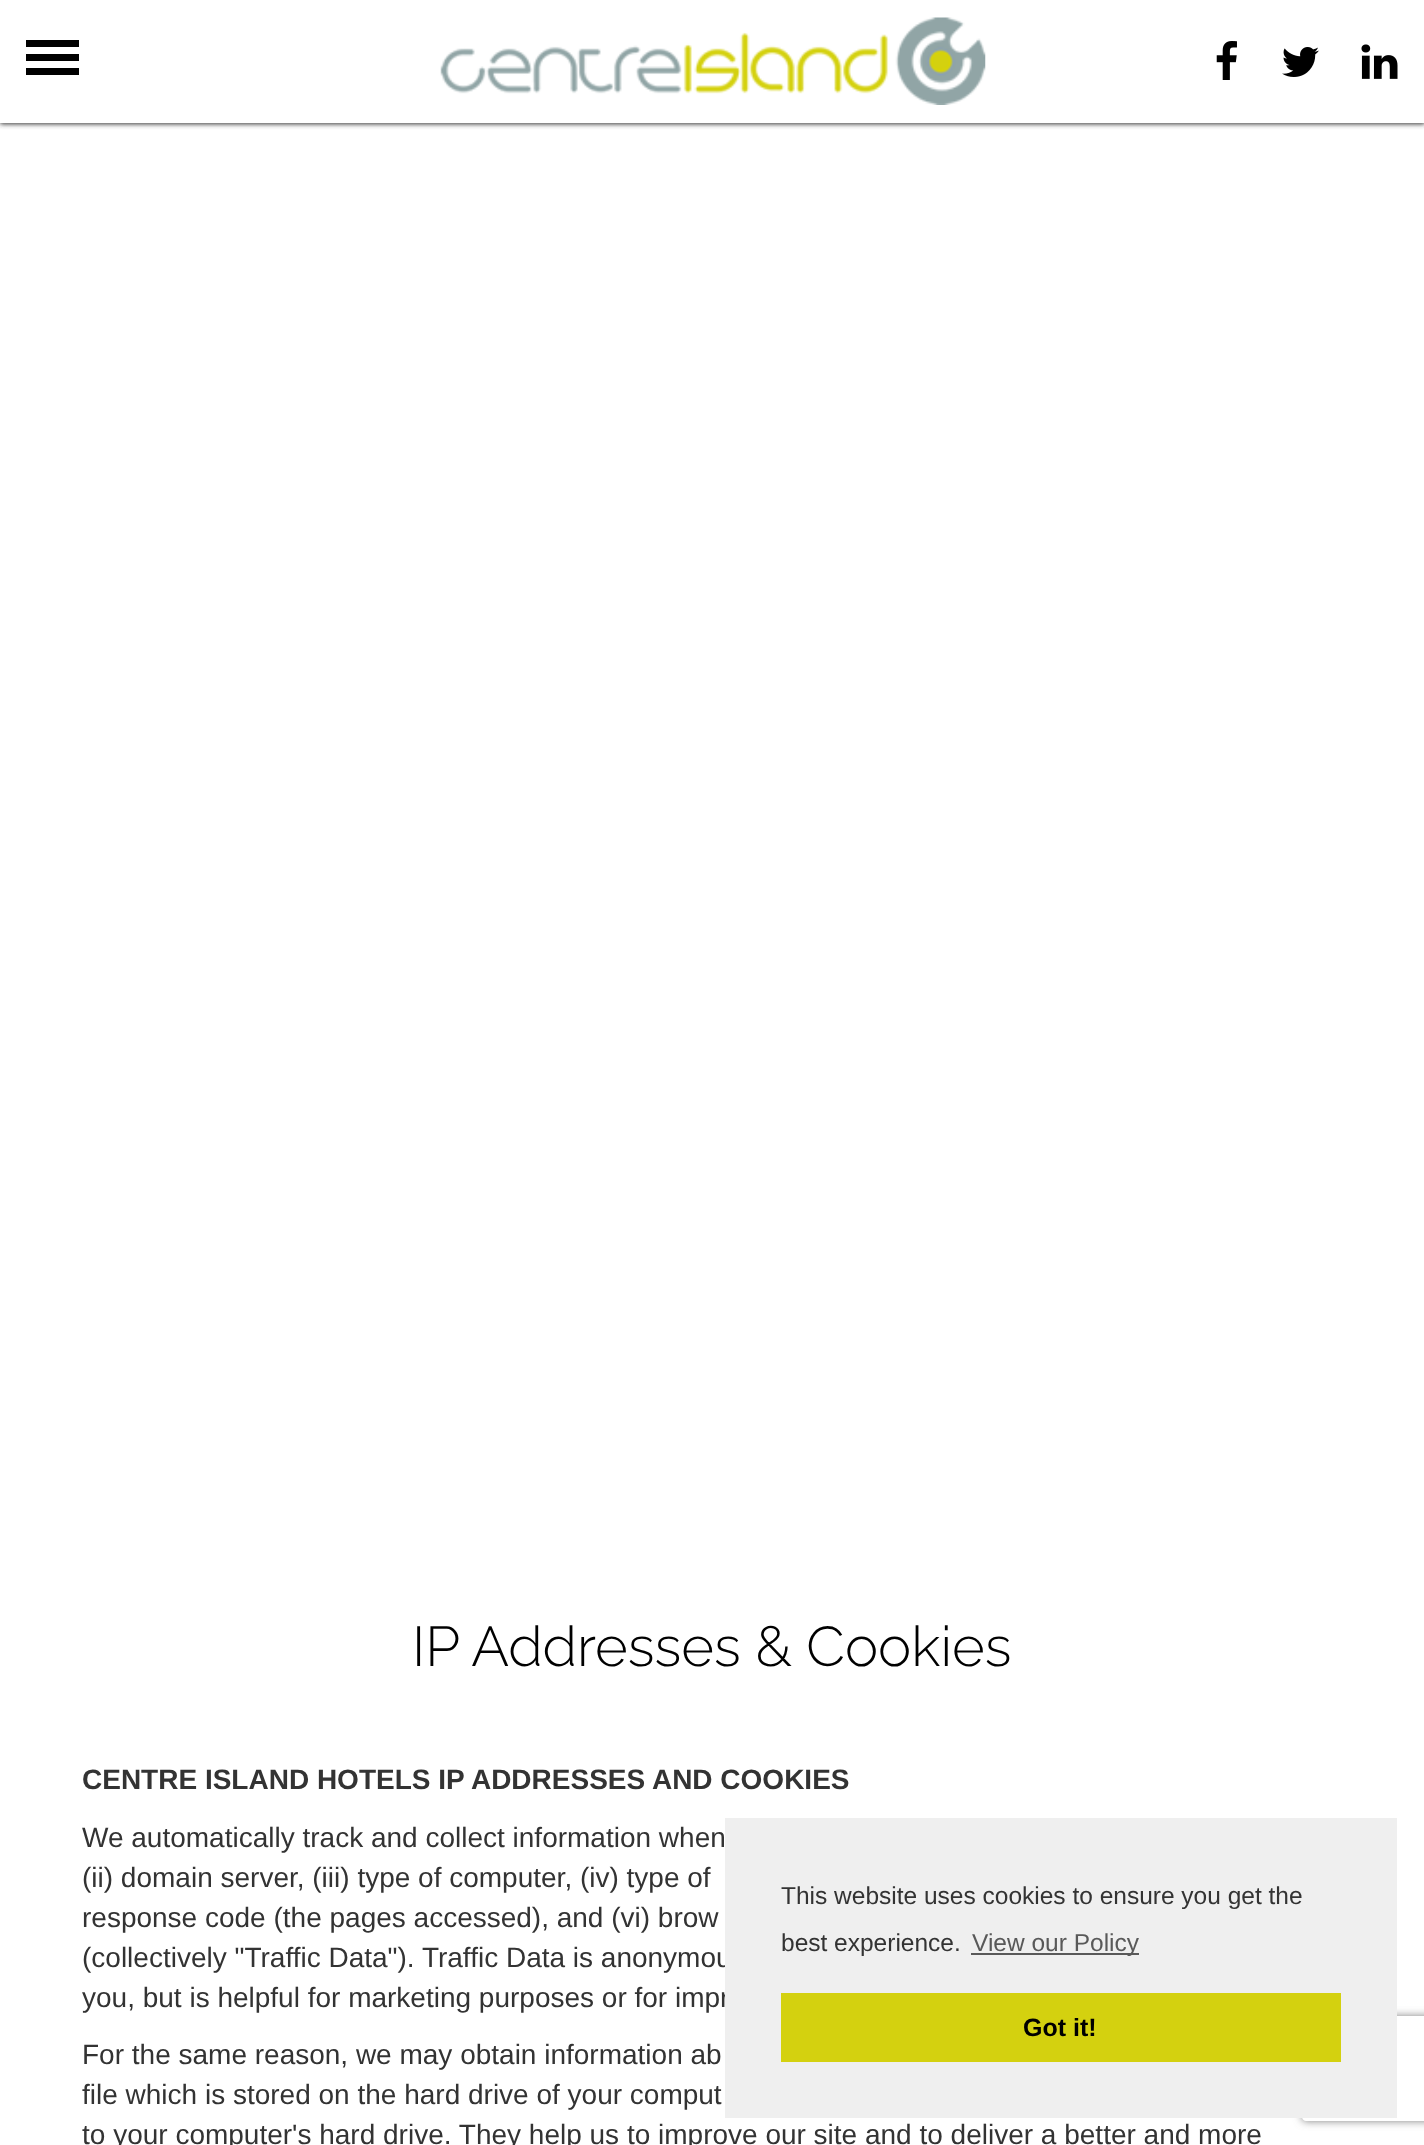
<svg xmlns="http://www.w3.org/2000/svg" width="1424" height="2145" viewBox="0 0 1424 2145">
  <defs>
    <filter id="blur1" x="-50%" y="-200%" width="200%" height="500%"><feGaussianBlur stdDeviation="2.5"/></filter>
    <clipPath id="clip1"><path d="M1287 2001H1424V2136H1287ZM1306 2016H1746C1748 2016 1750 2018 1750 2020V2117C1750 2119 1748 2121 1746 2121H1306C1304 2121 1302 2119 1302 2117V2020C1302 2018 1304 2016 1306 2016Z" clip-rule="evenodd"/></clipPath>
    <filter id="blur2" x="-50%" y="-200%" width="200%" height="500%"><feGaussianBlur stdDeviation="4.5"/></filter>
  </defs>
  <rect width="100%" height="100%" fill="#ffffff"/>
  <rect x="0" y="2" width="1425" height="122" fill="#333333" filter="url(#blur1)"/>
  <rect x="0" y="0" width="1424" height="123" fill="#ffffff"/>
  <rect x="26" y="40" width="53" height="7" fill="#000000"/>
  <rect x="26" y="54" width="53" height="7" fill="#000000"/>
  <rect x="26" y="68" width="53" height="7" fill="#000000"/>
  <image x="440" y="17" width="546" height="88" href="img1.png"/>
  <image x="1216" y="41" width="21" height="39" href="img2.png"/>
  <image x="1282" y="47" width="37" height="30" href="img3.png"/>
  <image x="1361" y="44" width="37" height="35" href="img4.png"/>
  <text x="412" y="1666" font-family="Raleway" font-size="56" font-weight="300" fill="#000000">IP Addresses &amp; Cookies</text>
  <text x="82" y="1789" font-family="Liberation Sans" font-size="28" font-weight="bold" fill="#333333">CENTRE ISLAND HOTELS IP ADDRESSES AND COOKIES</text>
  <text x="82" y="1847" font-family="Liberation Sans" font-size="28" fill="#333333">We automatically track and collect information when</text>
  <text x="82" y="1887" font-family="Liberation Sans" font-size="28" fill="#333333">(ii) domain server, (iii) type of computer, (iv) type of</text>
  <text x="82" y="1927" font-family="Liberation Sans" font-size="28" fill="#333333">response code (the pages accessed), and (vi) brow</text>
  <text x="82" y="1967" font-family="Liberation Sans" font-size="28" fill="#333333">(collectively "Traffic Data"). Traffic Data is anonymou</text>
  <text x="82" y="2007" font-family="Liberation Sans" font-size="28" fill="#333333">you, but is helpful for marketing purposes or for impr</text>
  <text x="82" y="2064" font-family="Liberation Sans" font-size="28" fill="#333333">For the same reason, we may obtain information ab</text>
  <text x="82" y="2104" font-family="Liberation Sans" font-size="28" fill="#333333">file which is stored on the hard drive of your comput</text>
  <text x="82" y="2144" font-family="Liberation Sans" font-size="28" fill="#333333">to your computer's hard drive. They help us to improve our site and to deliver a better and more</text>
  <g clip-path="url(#clip1)">
    <rect x="1302" y="2016" width="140" height="105" rx="4" fill="#808080" filter="url(#blur2)"/>
  </g>
  <rect x="725" y="1818" width="672" height="300" fill="#efefef"/>
  <text x="781" y="1904" font-family="Liberation Sans" font-size="24.5" fill="#333333">This website uses cookies to ensure you get the</text>
  <text x="781" y="1951" font-family="Liberation Sans" font-size="24.5" fill="#333333">best experience.</text>
  <rect x="971" y="1953" width="168" height="2" fill="#595959"/>
  <text x="972" y="1951" font-family="Liberation Sans" font-size="24.5" fill="#595959">View our Policy</text>
  <rect x="781" y="1993" width="560" height="69" fill="#d4d10f"/>
  <text x="1023" y="2036" font-family="Liberation Sans" font-size="25" font-weight="bold" fill="#000000">Got it!</text>
</svg>
